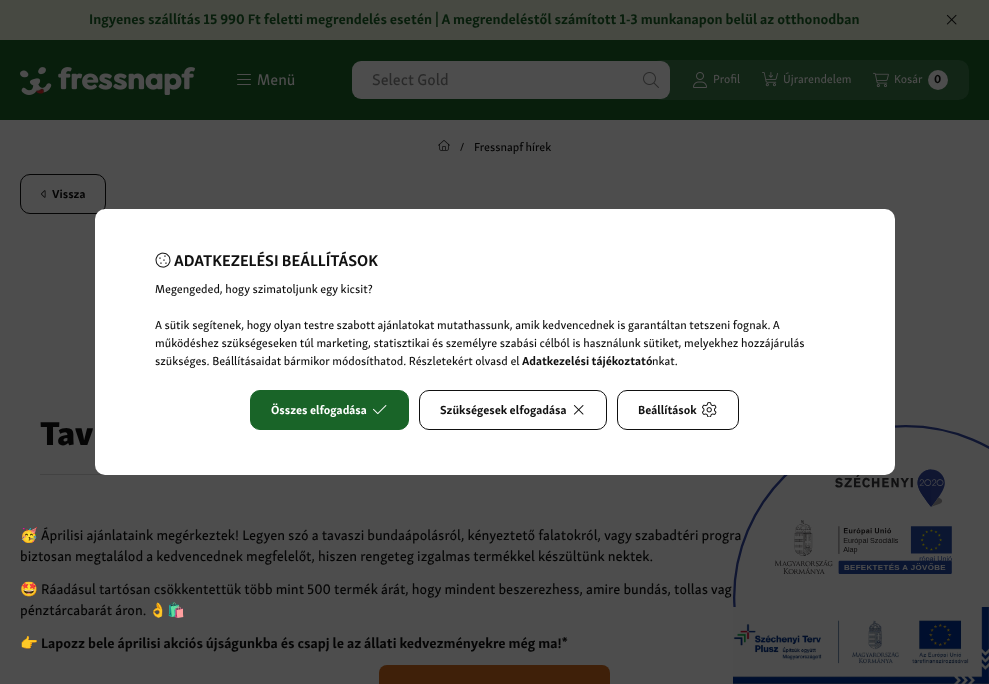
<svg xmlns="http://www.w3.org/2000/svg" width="989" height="684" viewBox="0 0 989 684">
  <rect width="100%" height="100%" fill="#4d4d4d"/>
  <rect x="0" y="0" width="989" height="40" fill="#474942"/>
  <text x="89" y="24" font-family="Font" font-size="14.38" font-weight="bold" fill="#081e0c">Ingyenes szállítás 15 990 Ft feletti megrendelés esetén | A megrendeléstől számított 1-3 munkanapon belül az otthonodban</text>
  <image x="946" y="14" width="11" height="11" href="img1.png"/>
  <rect x="0" y="40" width="989" height="80" fill="#081e0c"/>
  <image x="20" y="67" width="175" height="28" href="img2.png"/>
  <image x="237" y="74" width="14" height="11" href="img3.png"/>
  <text x="257" y="85" font-family="Font" font-size="16" font-weight="500" fill="#4d4d4d">Menü</text>
  <rect x="651" y="60" width="318" height="40" rx="10" fill="#122516"/>
  <rect x="352" y="61" width="318" height="38" rx="9" fill="#4d4d4d"/>
  <text x="372" y="85" font-family="Font" font-size="16" font-weight="500" fill="#292929">Select Gold</text>
  <image x="643" y="72" width="16" height="16" href="img4.png"/>
  <image x="693" y="72" width="14" height="16" href="img5.png"/>
  <text x="713" y="83" font-family="Font" font-size="12" font-weight="500" fill="#4d4d4d">Profil</text>
  <image x="762" y="72" width="16" height="15" href="img6.png"/>
  <text x="783" y="83" font-family="Font" font-size="12" font-weight="500" fill="#4d4d4d">Újrarendelem</text>
  <image x="873" y="72" width="16" height="16" href="img7.png"/>
  <text x="894" y="83" font-family="Font" font-size="12" font-weight="500" fill="#4d4d4d">Kosár</text>
  <circle cx="938" cy="80" r="10" fill="#4d4d4d"/>
  <text x="934" y="83" font-family="Font" font-size="12" font-weight="bold" fill="#050505">0</text>
  <image x="438" y="140" width="12" height="11" href="img8.png"/>
  <text x="460" y="150" font-family="Font" font-size="10" font-weight="500" fill="#050505">/</text>
  <text x="474" y="151" font-family="Font" font-size="12" font-weight="500" fill="#050505">Fressnapf hírek</text>
  <rect x="20.5" y="174.5" width="85" height="39" rx="9.5" fill="none" stroke="#050505"/>
  <image x="41" y="190" width="5" height="8" href="img9.png"/>
  <text x="52" y="198" font-family="Font" font-size="12" font-weight="bold" fill="#050505">Vissza</text>
  <text x="40" y="445" font-family="Font" font-size="34" font-weight="800" fill="#050505">Tav</text>
  <rect x="40" y="474" width="65" height="1" fill="#424242"/>
  <text x="20" y="540" font-family="Noto Color Emoji" font-size="14.38" fill="#050505">🥳</text>
  <text x="41" y="540" font-family="Font" font-size="14.38" font-weight="500" fill="#050505">Áprilisi ajánlataink megérkeztek! Legyen szó a tavaszi bundaápolásról, kényeztető falatokról, vagy szabadtéri progra</text>
  <text x="20" y="561" font-family="Font" font-size="14.38" font-weight="500" fill="#050505">biztosan megtalálod a kedvencednek megfelelőt, hiszen rengeteg izgalmas termékkel készültünk nektek.</text>
  <text x="20" y="594" font-family="Noto Color Emoji" font-size="14.38" fill="#050505">🤩</text>
  <text x="41" y="594" font-family="Font" font-size="14.38" font-weight="500" fill="#050505">Ráadásul tartósan csökkentettük több mint 500 termék árát, hogy mindent beszerezhess, amire bundás, tollas vag</text>
  <text x="20" y="615" font-family="Font" font-size="14.38" font-weight="500" fill="#050505">pénztárcabarát áron.</text>
  <text x="149" y="615" font-family="Noto Color Emoji" font-size="14.38" fill="#050505">👌🛍️</text>
  <text x="20" y="648" font-family="Noto Color Emoji" font-size="14.38" font-weight="bold" fill="#050505">👉</text>
  <text x="41" y="648" font-family="Font" font-size="14.38" font-weight="bold" fill="#050505">Lapozz bele áprilisi akciós újságunkba és csapj le az állati kedvezményekre még ma!*</text>
  <rect x="379" y="665" width="231" height="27" rx="8" fill="#3f2009"/>
  <image x="733" y="425" width="256" height="182" href="img14.png"/>
  <rect x="95" y="209" width="800" height="266" rx="10" fill="#ffffff"/>
  <image x="155" y="252" width="16" height="16" href="img10.png"/>
  <text x="174" y="266" font-family="Font" font-size="16" font-weight="bold" fill="#111111">ADATKEZELÉSI BEÁLLÍTÁSOK</text>
  <text x="155" y="293" font-family="Font" font-size="12" font-weight="500" fill="#111111">Megengeded, hogy szimatoljunk egy kicsit?</text>
  <text x="155" y="329" font-family="Font" font-size="12" font-weight="500" fill="#111111">A sütik segítenek, hogy olyan testre szabott ajánlatokat mutathassunk, amik kedvencednek is garantáltan tetszeni fognak. A</text>
  <text x="155" y="347" font-family="Font" font-size="12" font-weight="500" fill="#111111">működéshez szükségeseken túl marketing, statisztikai és személyre szabási célból is használunk sütiket, melyekhez hozzájárulás</text>
  <text x="155" y="365" font-family="Font" font-size="12" font-weight="500" fill="#111111">szükséges. Beállításaidat bármikor módosíthatod. Részletekért olvasd el</text>
  <text x="522" y="365" font-family="Font" font-size="12" font-weight="bold" fill="#111111">Adatkezelési tájékoztató</text>
  <text x="652" y="365" font-family="Font" font-size="12" font-weight="500" fill="#111111">nkat.</text>
  <rect x="250.5" y="390.5" width="158" height="39" rx="9.5" fill="#196428" stroke="#196428"/>
  <text x="271" y="414" font-family="Font" font-size="12" font-weight="bold" fill="#ffffff">Összes elfogadása</text>
  <image x="373" y="405" width="14" height="10" href="img11.png"/>
  <rect x="419.5" y="390.5" width="187" height="39" rx="9.5" fill="none" stroke="#111111"/>
  <text x="440" y="414" font-family="Font" font-size="12" font-weight="bold" fill="#111111">Szükségesek elfogadása</text>
  <image x="573" y="405" width="11" height="10" href="img12.png"/>
  <rect x="617.5" y="390.5" width="121" height="39" rx="9.5" fill="none" stroke="#111111"/>
  <text x="638" y="414" font-family="Font" font-size="12" font-weight="bold" fill="#111111">Beállítások</text>
  <image x="702" y="402" width="15" height="15" href="img13.png"/>
  <image x="733" y="607" width="256" height="77" href="img15.png"/>
</svg>
